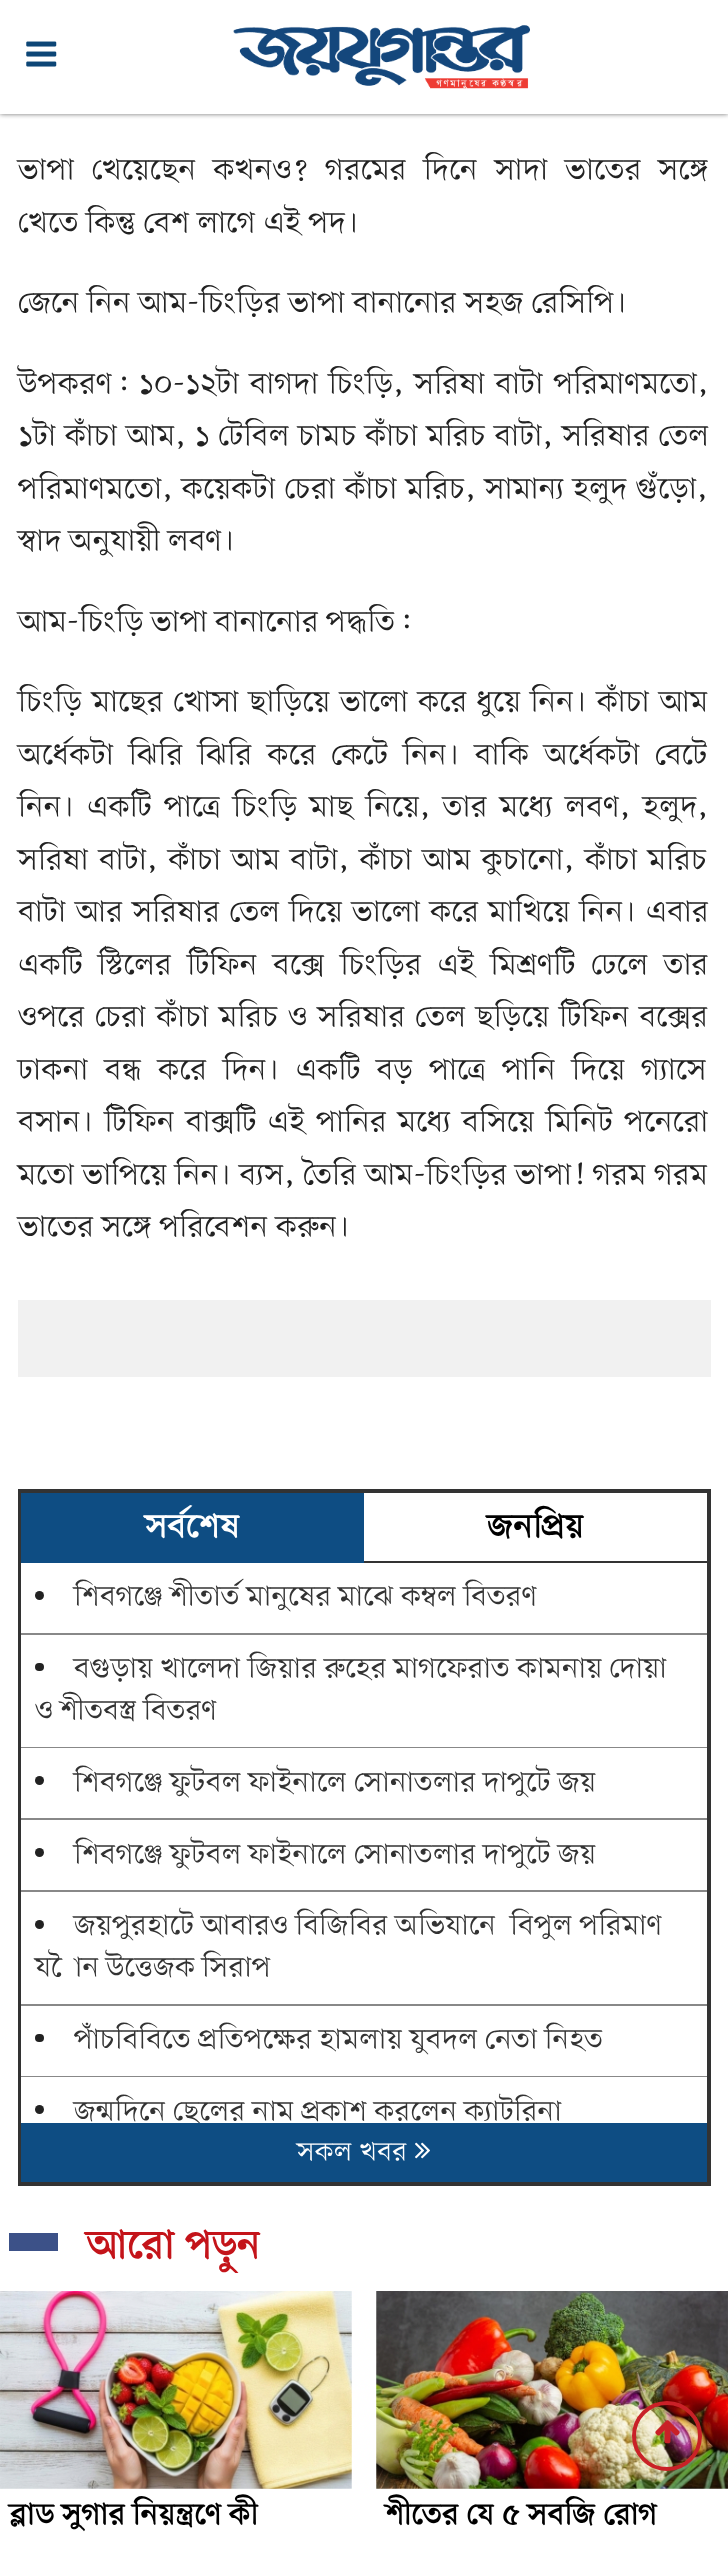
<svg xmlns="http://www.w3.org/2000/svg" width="728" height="2557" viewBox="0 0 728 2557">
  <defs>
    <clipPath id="clip1"><path d="M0 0H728V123H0ZM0 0H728V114H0Z" clip-rule="evenodd"/></clipPath>
    <filter id="blur1" x="-50%" y="-200%" width="200%" height="500%"><feGaussianBlur stdDeviation="2.5"/></filter>
    <clipPath id="clip2"><rect x="0" y="2221" width="728" height="52"/></clipPath>
  </defs>
  <rect width="100%" height="100%" fill="#ffffff"/>
  <g clip-path="url(#clip1)">
    <rect x="0" y="0" width="728" height="114" fill="#000000" fill-opacity="0.57" filter="url(#blur1)"/>
  </g>
  <image x="26" y="41" width="31" height="26" href="img1.png"/>
  <image x="233" y="25" width="297" height="64" href="img2.png"/>
  <text x="18" y="179" word-spacing="9" font-family="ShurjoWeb" font-size="31.5" letter-spacing="0.18" fill="#222222">ভাপা খেয়েছেন কখনও? গরমের দিনে সাদা ভাতের সঙ্গে</text>
  <text x="18" y="232" word-spacing="-0.5" font-family="ShurjoWeb" font-size="31.5" letter-spacing="0.18" fill="#222222">খেতে কিন্তু বেশ লাগে এই পদ।</text>
  <text x="18" y="312" word-spacing="-0.5" font-family="ShurjoWeb" font-size="31.5" letter-spacing="0.18" fill="#222222">জেনে নিন আম-চিংড়ির ভাপা বানানোর সহজ রেসিপি।</text>
  <text x="18" y="393" word-spacing="2" font-family="ShurjoWeb" font-size="31.5" letter-spacing="0.18" fill="#222222">উপকরণ: ১০-১২টা বাগদা চিংড়ি, সরিষা বাটা পরিমাণমতো,</text>
  <text x="18" y="445" word-spacing="0.5" font-family="ShurjoWeb" font-size="31.5" letter-spacing="0.18" fill="#222222">১টা কাঁচা আম, ১ টেবিল চামচ কাঁচা মরিচ বাটা, সরিষার তেল</text>
  <text x="18" y="498" word-spacing="0.5" font-family="ShurjoWeb" font-size="31.5" letter-spacing="0.18" fill="#222222">পরিমাণমতো, কয়েকটা চেরা কাঁচা মরিচ, সামান্য হলুদ গুঁড়ো,</text>
  <text x="18" y="550" word-spacing="-1" font-family="ShurjoWeb" font-size="31.5" letter-spacing="0.18" fill="#222222">স্বাদ অনুযায়ী লবণ।</text>
  <text x="18" y="631" word-spacing="-1" font-family="ShurjoWeb" font-size="31.5" letter-spacing="0.18" fill="#222222">আম-চিংড়ি ভাপা বানানোর পদ্ধতি:</text>
  <text x="18" y="711" word-spacing="1.5" font-family="ShurjoWeb" font-size="31.5" letter-spacing="0.18" fill="#222222">চিংড়ি মাছের খোসা ছাড়িয়ে ভালো করে ধুয়ে নিন। কাঁচা আম</text>
  <text x="18" y="764" word-spacing="6.75" font-family="ShurjoWeb" font-size="31.5" letter-spacing="0.18" fill="#222222">অর্ধেকটা ঝিরি ঝিরি করে কেটে নিন। বাকি অর্ধেকটা বেটে</text>
  <text x="18" y="816" word-spacing="4.25" font-family="ShurjoWeb" font-size="31.5" letter-spacing="0.18" fill="#222222">নিন। একটি পাত্রে চিংড়ি মাছ নিয়ে, তার মধ্যে লবণ, হলুদ,</text>
  <text x="18" y="869" word-spacing="2" font-family="ShurjoWeb" font-size="31.5" letter-spacing="0.18" fill="#222222">সরিষা বাটা, কাঁচা আম বাটা, কাঁচা আম কুচানো, কাঁচা মরিচ</text>
  <text x="18" y="921" word-spacing="1.25" font-family="ShurjoWeb" font-size="31.5" letter-spacing="0.18" fill="#222222">বাটা আর সরিষার তেল দিয়ে ভালো করে মাখিয়ে নিন। এবার</text>
  <text x="18" y="974" word-spacing="7.5" font-family="ShurjoWeb" font-size="31.5" letter-spacing="0.18" fill="#222222">একটি স্টিলের টিফিন বক্সে চিংড়ির এই মিশ্রণটি ঢেলে তার</text>
  <text x="18" y="1026" word-spacing="1.9" font-family="ShurjoWeb" font-size="31.5" letter-spacing="0.18" fill="#222222">ওপরে চেরা কাঁচা মরিচ ও সরিষার তেল ছড়িয়ে টিফিন বক্সের</text>
  <text x="18" y="1079" word-spacing="8" font-family="ShurjoWeb" font-size="31.5" letter-spacing="0.18" fill="#222222">ঢাকনা বন্ধ করে দিন। একটি বড় পাত্রে পানি দিয়ে গ্যাসে</text>
  <text x="18" y="1131" word-spacing="3" font-family="ShurjoWeb" font-size="31.5" letter-spacing="0.18" fill="#222222">বসান। টিফিন বাক্সটি এই পানির মধ্যে বসিয়ে মিনিট পনেরো</text>
  <text x="18" y="1184" word-spacing="-0.25" font-family="ShurjoWeb" font-size="31.5" letter-spacing="0.18" fill="#222222">মতো ভাপিয়ে নিন। ব্যস, তৈরি আম-চিংড়ির ভাপা! গরম গরম</text>
  <text x="18" y="1236" word-spacing="-0.5" font-family="ShurjoWeb" font-size="31.5" letter-spacing="0.18" fill="#222222">ভাতের সঙ্গে পরিবেশন করুন।</text>
  <rect x="18" y="1300" width="693" height="77" fill="#f1f1f1"/>
  <rect x="20" y="1491" width="689" height="693" fill="none" stroke="#333333" stroke-width="4"/>
  <rect x="364" y="1561" width="343" height="2" fill="#333333"/>
  <rect x="21" y="1493" width="343" height="70" fill="#0e4d83"/>
  <text x="145" y="1537" font-family="ShurjoWeb" font-size="35" font-weight="bold" letter-spacing="0.18" fill="#ffffff">সর্বশেষ</text>
  <text x="487" y="1537" font-family="ShurjoWeb" font-size="35" font-weight="bold" letter-spacing="0.18" fill="#000000">জনপ্রিয়</text>
  <rect x="21" y="1563" width="1" height="70" fill="#ffffff"/>
  <rect x="21" y="1633" width="686" height="2" fill="#888888"/>
  <circle cx="39.5" cy="1595.5" r="4.5" fill="#222222"/>
  <text x="74" y="1605" word-spacing="-0.5" font-family="ShurjoWeb" font-size="29.75" letter-spacing="0.18" fill="#333333">শিবগঞ্জে শীতার্ত মানুষের মাঝে কম্বল বিতরণ</text>
  <rect x="21" y="1635" width="1" height="112" fill="#ffffff"/>
  <rect x="21" y="1747" width="686" height="1" fill="#888888"/>
  <rect x="35" y="1663" width="9" height="8" rx="4" fill="#222222"/>
  <text x="74" y="1677" word-spacing="-0.5" font-family="ShurjoWeb" font-size="29.75" letter-spacing="0.18" fill="#333333">বগুড়ায় খালেদা জিয়ার রুহের মাগফেরাত কামনায় দোয়া</text>
  <text x="35" y="1719" word-spacing="-1" font-family="ShurjoWeb" font-size="29.75" letter-spacing="0.18" fill="#333333">ও শীতবস্ত্র বিতরণ</text>
  <rect x="21" y="1748" width="1" height="70" fill="#ffffff"/>
  <rect x="21" y="1818" width="686" height="2" fill="#888888"/>
  <circle cx="39.5" cy="1780.5" r="4.5" fill="#222222"/>
  <text x="74" y="1791" word-spacing="-0.5" font-family="ShurjoWeb" font-size="29.75" letter-spacing="0.18" fill="#333333">শিবগঞ্জে ফুটবল ফাইনালে সোনাতলার দাপুটে জয়</text>
  <rect x="21" y="1820" width="1" height="70" fill="#ffffff"/>
  <rect x="21" y="1890" width="686" height="2" fill="#888888"/>
  <circle cx="39.5" cy="1852.5" r="4.5" fill="#222222"/>
  <text x="74" y="1863" word-spacing="-0.5" font-family="ShurjoWeb" font-size="29.75" letter-spacing="0.18" fill="#333333">শিবগঞ্জে ফুটবল ফাইনালে সোনাতলার দাপুটে জয়</text>
  <rect x="21" y="1892" width="1" height="112" fill="#ffffff"/>
  <rect x="21" y="2004" width="686" height="2" fill="#888888"/>
  <circle cx="39.5" cy="1924.5" r="4.5" fill="#222222"/>
  <text x="74" y="1934" word-spacing="-0.5" font-family="ShurjoWeb" font-size="29.75" letter-spacing="0.18" fill="#333333" xml:space="preserve">জয়পুরহাটে আবারও বিজিবির অভিযানে  বিপুল পরিমাণ</text>
  <text x="35" y="1976" word-spacing="-1" font-family="ShurjoWeb" font-size="29.75" letter-spacing="0.18" fill="#333333">যৌন উত্তেজক সিরাপ</text>
  <rect x="21" y="2006" width="1" height="70" fill="#ffffff"/>
  <rect x="21" y="2076" width="686" height="1" fill="#888888"/>
  <rect x="35" y="2034" width="9" height="8" rx="4" fill="#222222"/>
  <text x="74" y="2048" word-spacing="-0.5" font-family="ShurjoWeb" font-size="29.75" letter-spacing="0.18" fill="#333333">পাঁচবিবিতে প্রতিপক্ষের হামলায় যুবদল নেতা নিহত</text>
  <rect x="21" y="2077" width="1" height="46" fill="#ffffff"/>
  <circle cx="39.5" cy="2109.5" r="4.5" fill="#222222"/>
  <text x="74" y="2120" word-spacing="-0.5" font-family="ShurjoWeb" font-size="29.75" letter-spacing="0.18" fill="#333333">জন্মদিনে ছেলের নাম প্রকাশ করলেন ক্যাটরিনা</text>
  <rect x="21" y="2123" width="686" height="59" fill="#0e4d83"/>
  <text x="297" y="2160" font-family="ShurjoWeb" font-size="28" letter-spacing="0.18" fill="#ffffff">সকল খবর</text>
  <image x="415" y="2142" width="15" height="17" href="img3.png"/>
  <rect x="9" y="2233" width="49" height="18" fill="#3c5188"/>
  <g clip-path="url(#clip2)">
    <text x="86" y="2258" font-family="ShurjoWeb" font-size="42" font-weight="bold" letter-spacing="0.18" fill="#c4141a">আরো পড়ুন</text>
  </g>
  <image x="0" y="2291" width="352" height="198" href="img4.png"/>
  <text x="9" y="2524" word-spacing="-1" font-family="ShurjoWeb" font-size="31.5" font-weight="bold" letter-spacing="0.18" fill="#000000">ব্লাড সুগার নিয়ন্ত্রণে কী</text>
  <image x="376" y="2291" width="352" height="198" href="img5.png"/>
  <text x="385" y="2524" font-family="ShurjoWeb" font-size="31.5" font-weight="bold" letter-spacing="0.18" fill="#000000">শীতের যে ৫ সবজি রোগ</text>
  <circle cx="667" cy="2436" r="33" fill="none" stroke="#c92127" stroke-width="4"/>
  <image x="655" y="2420" width="25" height="24" href="img6.png"/>
</svg>
